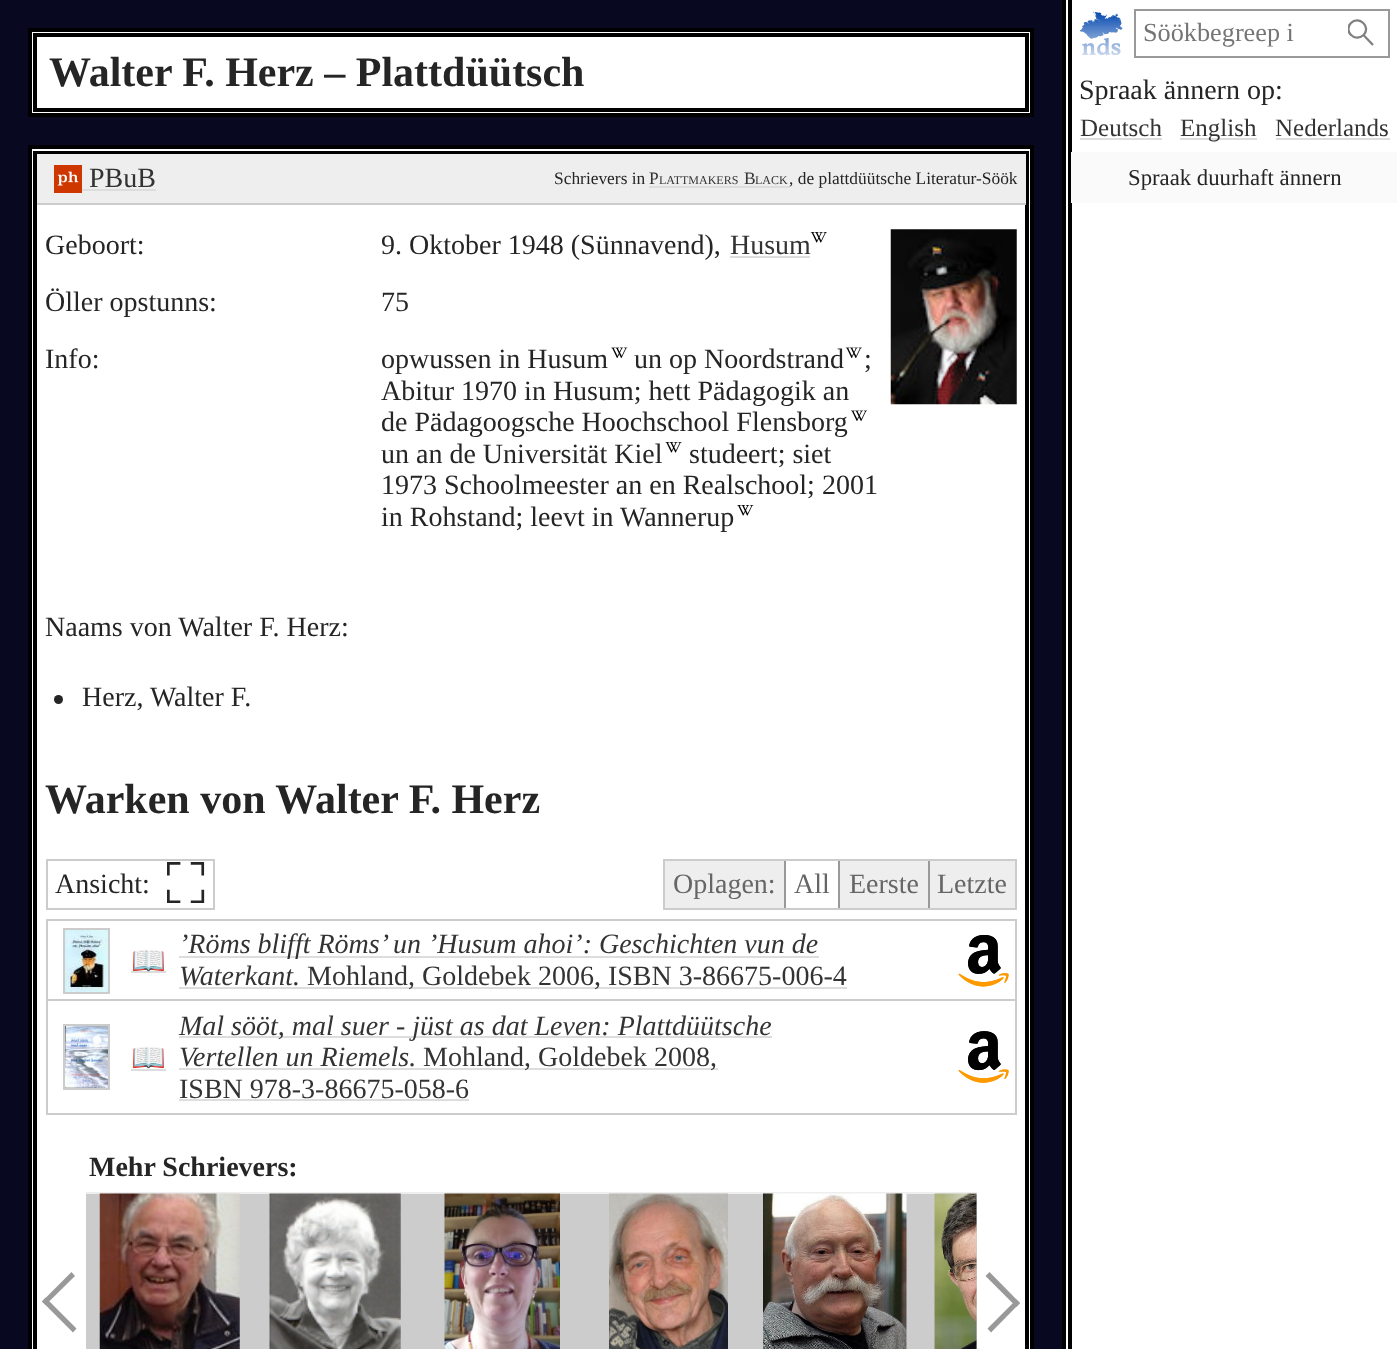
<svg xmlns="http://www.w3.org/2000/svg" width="1397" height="1349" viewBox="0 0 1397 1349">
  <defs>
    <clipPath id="clip1"><rect x="1348" y="19" width="28" height="28"/></clipPath>
  </defs>
  <rect width="100%" height="100%" fill="#080820"/>
  <rect x="30" y="30" width="1002" height="85" fill="#ffffff" stroke="#000000" stroke-width="4"/>
  <rect x="35" y="35" width="992" height="75" fill="none" stroke="#000000" stroke-width="4"/>
  <text x="49" y="86" font-family="Liberation Serif" font-size="42" font-weight="bold" fill="#252525">Walter F. Herz – Plattdüütsch</text>
  <rect x="1066" y="0" width="331" height="1349" fill="#ffffff"/>
  <rect x="1062" y="0" width="4" height="1349" fill="#000000"/>
  <rect x="1068" y="0" width="4" height="1349" fill="#000000"/>
  <image x="1080" y="11" width="43" height="45" href="img1.png"/>
  <rect x="1135" y="10" width="254" height="47" fill="none" stroke="#999999" stroke-width="2"/>
  <text x="1143" y="41" font-family="Liberation Serif" font-size="26.25" fill="#757575">Söökbegreep i</text>
  <g clip-path="url(#clip1)">
    <path d="M1363.5 35C1371.5 27 1359 15 1351 23C1343 31 1355 43 1363.5 35L1373 45" fill="none" stroke="#808080" stroke-width="2.3"/>
  </g>
  <text x="1079" y="99" font-family="Liberation Serif" font-size="28" fill="#252525">Spraak ännern op:</text>
  <text x="1080" y="136" font-family="Liberation Serif" font-size="25" fill="#333333">Deutsch</text>
  <rect x="1080" y="138" width="82" height="2" fill="#dddddd"/>
  <rect x="1180" y="138" width="77" height="2" fill="#dddddd"/>
  <text x="1180" y="136" font-family="Liberation Serif" font-size="25" fill="#333333">English</text>
  <text x="1275" y="136" font-family="Liberation Serif" font-size="25" fill="#333333">Nederlands</text>
  <rect x="1276" y="138" width="114" height="2" fill="#dddddd"/>
  <rect x="1071" y="152" width="326" height="51" fill="#fafafa"/>
  <text x="1128" y="185" font-family="Liberation Serif" font-size="22.75" fill="#252525">Spraak duurhaft ännern</text>
  <rect x="30" y="147" width="1002" height="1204" fill="#ffffff" stroke="#000000" stroke-width="4"/>
  <rect x="35" y="153" width="992" height="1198" fill="none" stroke="#000000" stroke-width="4"/>
  <rect x="37" y="154" width="989" height="49" fill="#eeeeee"/>
  <rect x="37" y="203" width="989" height="2" fill="#cccccc"/>
  <image x="54" y="165" width="28" height="28" href="img2.png"/>
  <text x="89" y="187" font-family="Liberation Serif" font-size="28" fill="#333333">PBuB</text>
  <rect x="82" y="189" width="74" height="2" fill="#dddddd"/>
  <text x="554" y="184" font-family="Liberation Serif" font-size="17.4" fill="#252525">Schrievers in</text>
  <text x="649" y="184" font-family="Liberation Serif" font-size="17.4" fill="#333333">P</text>
  <text x="659" y="184" font-family="Liberation Serif" font-size="12" fill="#333333">LATTMAKERS</text>
  <rect x="649" y="186" width="140" height="2" fill="#dddddd"/>
  <text x="744" y="184" font-family="Liberation Serif" font-size="17.4" fill="#333333">B</text>
  <text x="755" y="184" font-family="Liberation Serif" font-size="12" fill="#333333">LACK</text>
  <text x="789" y="184" font-family="Liberation Serif" font-size="17.4" fill="#252525">, de plattdüütsche Literatur-Söök</text>
  <text x="45" y="254" font-family="Liberation Serif" font-size="28" fill="#252525">Geboort:</text>
  <text x="381" y="254" font-family="Liberation Serif" font-size="28" fill="#252525">9. Oktober 1948 (Sünnavend),</text>
  <text x="730" y="254" font-family="Liberation Serif" font-size="28" fill="#333333">Husum</text>
  <rect x="730" y="256" width="80" height="2" fill="#dddddd"/>
  <image x="810" y="232" width="17" height="11" href="img3.png"/>
  <text x="45" y="311" font-family="Liberation Serif" font-size="28" fill="#252525">Öller opstunns:</text>
  <text x="381" y="311" font-family="Liberation Serif" font-size="28" fill="#252525">75</text>
  <text x="45" y="368" font-family="Liberation Serif" font-size="28" fill="#252525">Info:</text>
  <text x="381" y="368" font-family="Liberation Serif" font-size="28" fill="#252525">opwussen in Husum</text>
  <image x="611" y="347" width="17" height="12" href="img4.png"/>
  <text x="634" y="368" font-family="Liberation Serif" font-size="28" fill="#252525">un op Noordstrand</text>
  <image x="845" y="347" width="17" height="12" href="img5.png"/>
  <text x="864" y="368" font-family="Liberation Serif" font-size="28" fill="#252525">;</text>
  <text x="381" y="400" font-family="Liberation Serif" font-size="28" fill="#252525">Abitur 1970 in Husum; hett Pädagogik an</text>
  <text x="381" y="431" font-family="Liberation Serif" font-size="28" fill="#252525">de Pädagoogsche Hoochschool Flensborg</text>
  <image x="851" y="410" width="17" height="11" href="img6.png"/>
  <text x="381" y="463" font-family="Liberation Serif" font-size="28" fill="#252525">un an de Universität Kiel</text>
  <image x="665" y="442" width="17" height="11" href="img7.png"/>
  <text x="689" y="463" font-family="Liberation Serif" font-size="28" fill="#252525">studeert; siet</text>
  <text x="381" y="494" font-family="Liberation Serif" font-size="28" fill="#252525">1973 Schoolmeester an en Realschool; 2001</text>
  <text x="381" y="526" font-family="Liberation Serif" font-size="28" fill="#252525">in Rohstand; leevt in</text>
  <text x="620" y="526" font-family="Liberation Serif" font-size="28" fill="#252525">Wannerup</text>
  <image x="737" y="505" width="17" height="11" href="img8.png"/>
  <text x="45" y="636" font-family="Liberation Serif" font-size="28" fill="#252525">Naams von Walter F. Herz:</text>
  <circle cx="58.5" cy="699.5" r="4.5" fill="#252525"/>
  <text x="82" y="706" font-family="Liberation Serif" font-size="28" fill="#252525">Herz, Walter F.</text>
  <image x="890" y="229" width="127" height="176" href="img9.png"/>
  <text x="45" y="813" font-family="Liberation Serif" font-size="42" font-weight="bold" fill="#252525">Warken von Walter F. Herz</text>
  <rect x="47" y="860" width="167" height="49" fill="none" stroke="#cccccc" stroke-width="2"/>
  <text x="55" y="893" font-family="Liberation Serif" font-size="28" fill="#252525">Ansicht:</text>
  <text x="166" y="903" font-family="FreeSans" font-size="56" fill="#252525">⛶︎</text>
  <rect x="664" y="860" width="352" height="49" fill="none" stroke="#cccccc" stroke-width="2"/>
  <rect x="665" y="861" width="119" height="47" fill="#eeeeee"/>
  <text x="673" y="893" font-family="Liberation Serif" font-size="28" fill="#666666">Oplagen:</text>
  <rect x="784" y="861" width="2" height="47" fill="#999999"/>
  <text x="794" y="893" font-family="Liberation Serif" font-size="28" fill="#666666">All</text>
  <rect x="840" y="861" width="88" height="47" fill="#eeeeee"/>
  <rect x="838" y="861" width="2" height="47" fill="#999999"/>
  <text x="849" y="893" font-family="Liberation Serif" font-size="28" fill="#666666">Eerste</text>
  <rect x="930" y="861" width="85" height="47" fill="#eeeeee"/>
  <rect x="928" y="861" width="2" height="47" fill="#999999"/>
  <text x="937" y="893" font-family="Liberation Serif" font-size="28" fill="#666666">Letzte</text>
  <rect x="47" y="920" width="969" height="194" fill="none" stroke="#cccccc" stroke-width="2"/>
  <rect x="47" y="999" width="968" height="2" fill="#cccccc"/>
  <image x="65" y="930" width="43" height="62" href="img10.png"/>
  <rect x="64" y="929" width="45" height="64" fill="none" stroke="#cccccc" stroke-width="2"/>
  <rect x="131" y="971" width="35" height="2" fill="#dddddd"/>
  <text x="131" y="970" font-family="Noto Color Emoji" font-size="28" fill="#333333">📖</text>
  <rect x="179" y="956" width="640" height="2" fill="#dddddd"/>
  <text x="179" y="953" font-family="Liberation Serif" font-size="28" font-style="italic" fill="#333333">’Röms blifft Röms’ un ’Husum ahoi’: Geschichten vun de</text>
  <text x="179" y="985" font-family="Liberation Serif" font-size="28" font-style="italic" fill="#333333">Waterkant.</text>
  <rect x="179" y="987" width="668" height="2" fill="#dddddd"/>
  <text x="307" y="985" font-family="Liberation Serif" font-size="28" fill="#333333">Mohland, Goldebek 2006, ISBN 3-86675-006-4</text>
  <image x="958" y="935" width="51" height="52" href="img11.png"/>
  <image x="65" y="1026" width="43" height="62" href="img12.png"/>
  <rect x="64" y="1025" width="45" height="64" fill="none" stroke="#cccccc" stroke-width="2"/>
  <rect x="131" y="1069" width="35" height="2" fill="#dddddd"/>
  <text x="131" y="1067" font-family="Noto Color Emoji" font-size="28" fill="#333333">📖</text>
  <rect x="179" y="1036" width="593" height="2" fill="#dddddd"/>
  <text x="179" y="1035" font-family="Liberation Serif" font-size="28" font-style="italic" fill="#333333">Mal sööt, mal suer - jüst as dat Leven: Plattdüütsche</text>
  <text x="179" y="1066" font-family="Liberation Serif" font-size="28" font-style="italic" fill="#333333">Vertellen un Riemels.</text>
  <rect x="179" y="1068" width="539" height="2" fill="#dddddd"/>
  <text x="423" y="1066" font-family="Liberation Serif" font-size="28" fill="#333333">Mohland, Goldebek 2008,</text>
  <text x="179" y="1098" font-family="Liberation Serif" font-size="28" fill="#333333">ISBN 978-3-86675-058-6</text>
  <rect x="179" y="1099" width="290" height="2" fill="#dddddd"/>
  <image x="958" y="1031" width="51" height="52" href="img13.png"/>
  <text x="89" y="1176" font-family="Liberation Serif" font-size="28" font-weight="bold" fill="#252525">Mehr Schrievers:</text>
  <path d="M76.5 1328.5L73 1332.5L42 1301.5L45.5 1297.5Z" fill="#999999"/>
  <path d="M75 1276L45.5 1305L42 1301.5L71.5 1272Z" fill="#999999"/>
  <rect x="86" y="1192" width="891" height="2" fill="#eeeeee"/>
  <rect x="86" y="1194" width="891" height="155" fill="#cccccc"/>
  <image x="99" y="1193" width="141" height="156" href="img14.png"/>
  <image x="269" y="1193" width="132" height="156" href="img15.png"/>
  <image x="444" y="1193" width="116" height="156" href="img16.png"/>
  <image x="609" y="1193" width="119" height="156" href="img17.png"/>
  <image x="763" y="1193" width="144" height="156" href="img18.png"/>
  <image x="934" y="1193" width="43" height="156" href="img19.png"/>
  <path d="M985.5 1276L989.5 1272L1020 1303L1016.5 1307Z" fill="#999999"/>
  <path d="M987.5 1328.5L1016.5 1299.5L1020 1303L991 1332.5Z" fill="#999999"/>
</svg>
